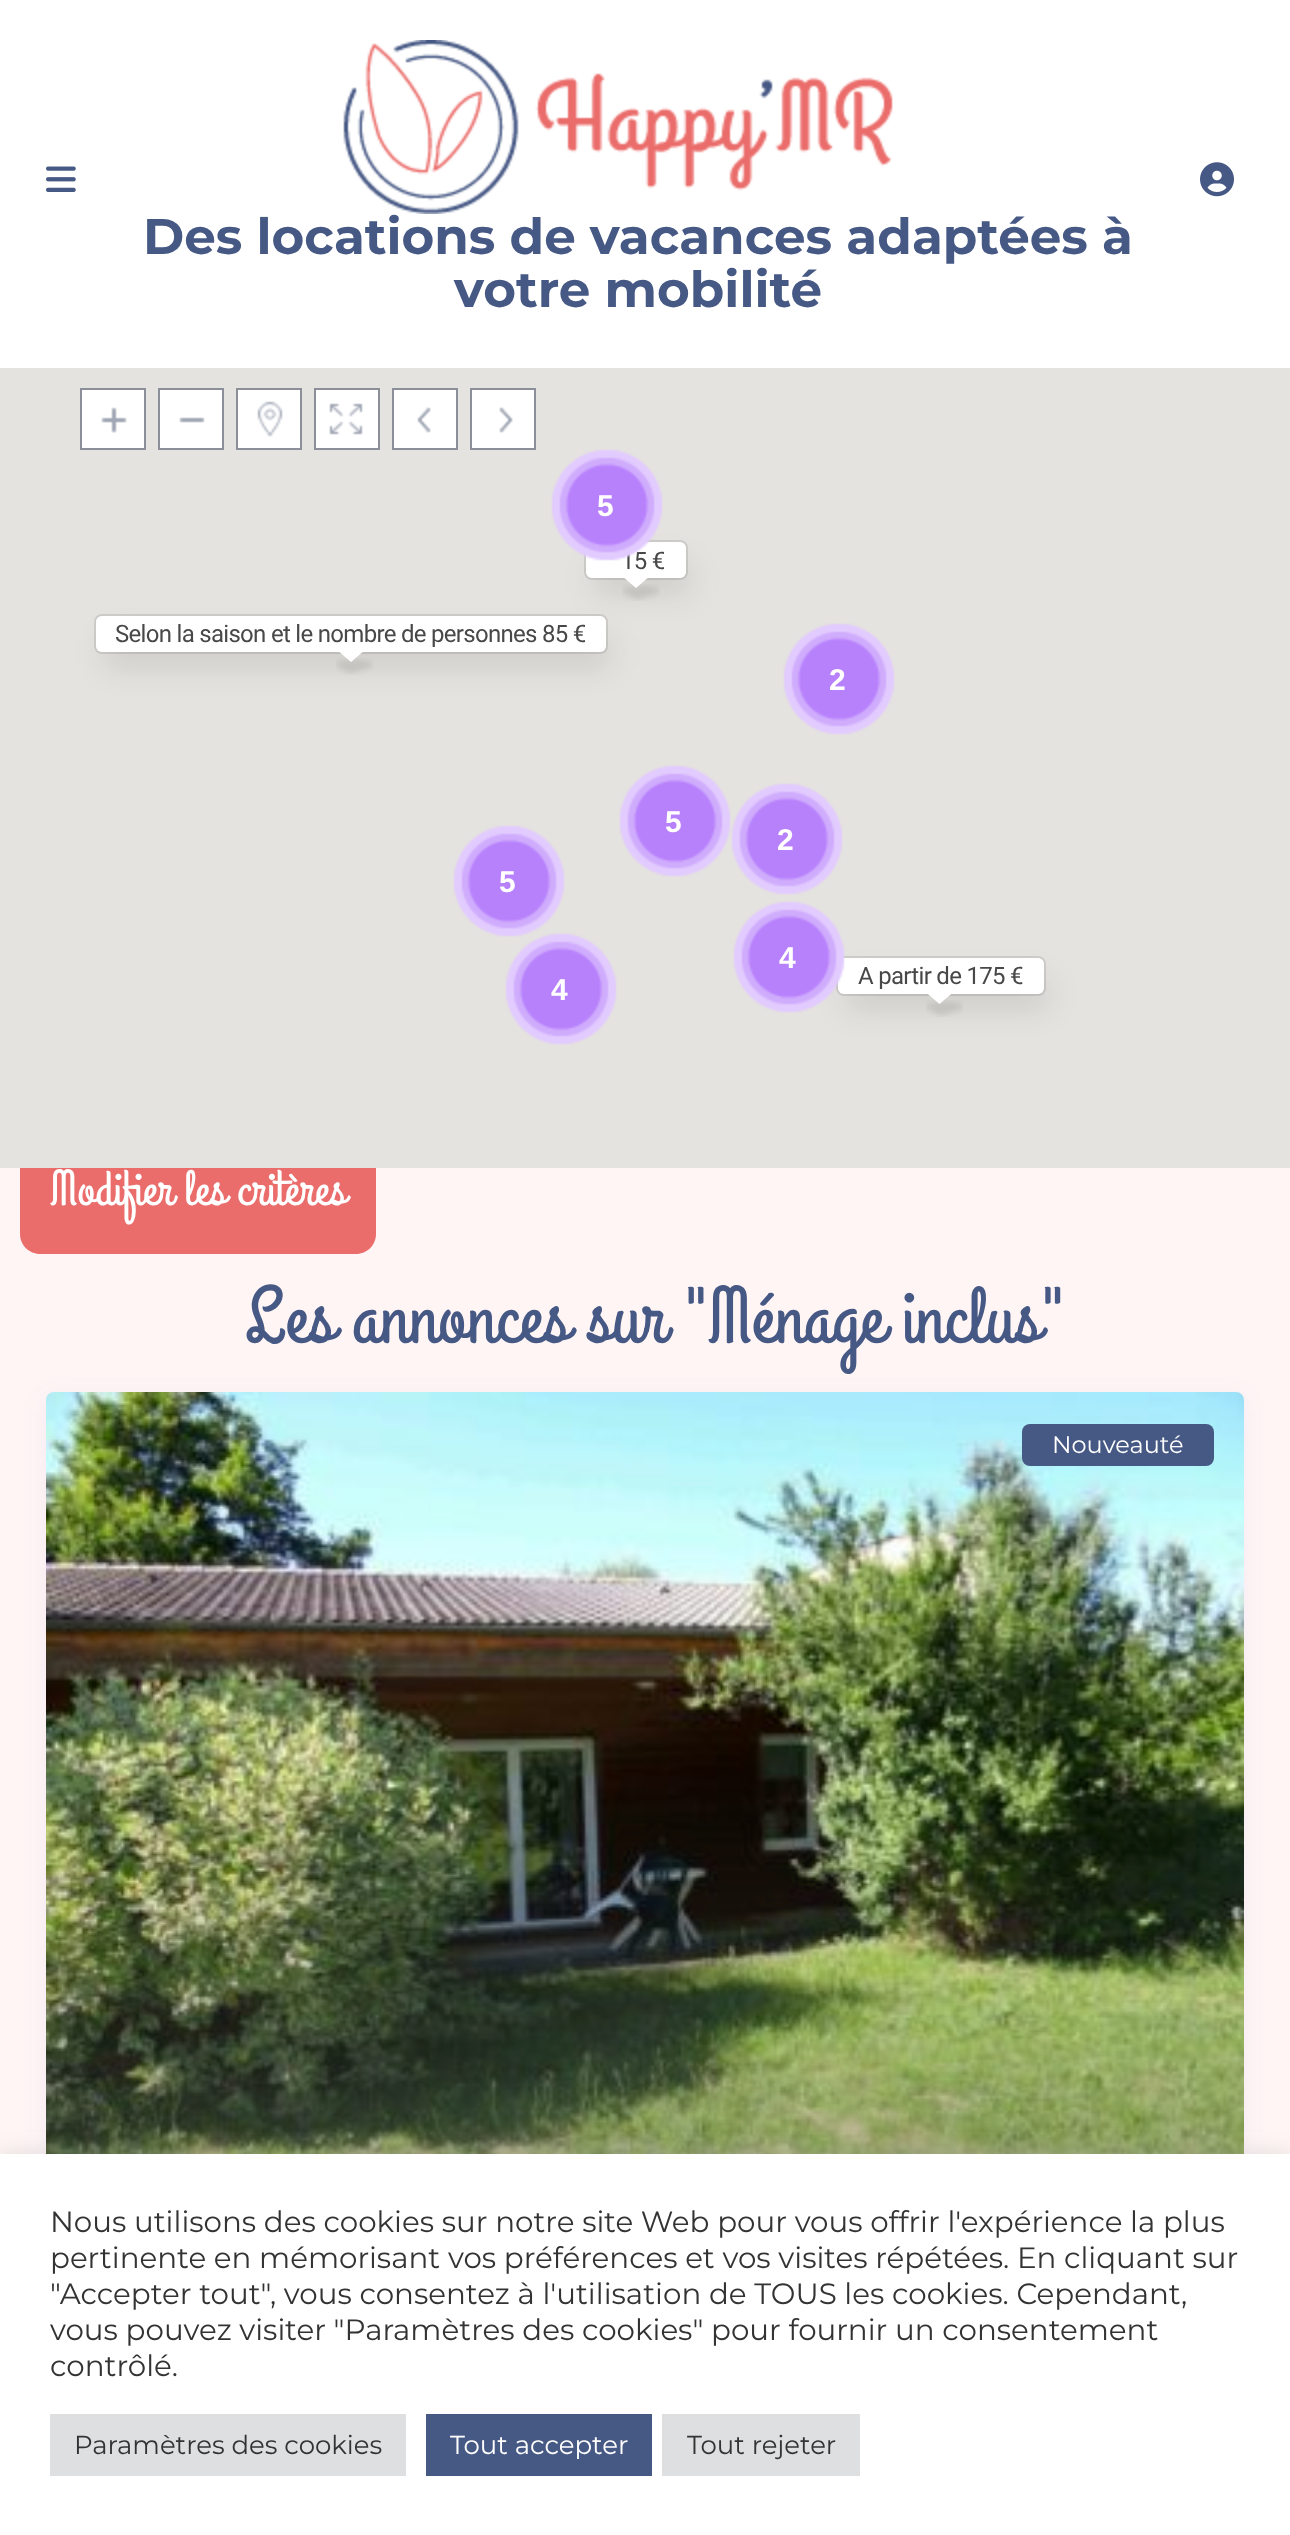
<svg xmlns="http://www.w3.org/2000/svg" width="1290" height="2535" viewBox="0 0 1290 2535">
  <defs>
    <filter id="blur1" x="-50%" y="-200%" width="200%" height="500%"><feGaussianBlur stdDeviation="15"/></filter>
    <filter id="blur2" x="-50%" y="-200%" width="200%" height="500%"><feGaussianBlur stdDeviation="11"/></filter>
    <filter id="blur3" x="-50%" y="-200%" width="200%" height="500%"><feGaussianBlur stdDeviation="10"/></filter>
  </defs>
  <rect width="100%" height="100%" fill="#ffffff"/>
  <image x="46" y="166" width="30" height="26" href="img1.png"/>
  <image x="1200" y="162" width="34" height="35" href="img2.png"/>
  <image x="343" y="40" width="550" height="174" href="img3.png"/>
  <text x="143" y="254" font-family="Montserrat" font-size="50" font-weight="bold" fill="#465884">Des locations de vacances adaptées à</text>
  <text x="454" y="307" font-family="Montserrat" font-size="50" font-weight="bold" fill="#465884">votre mobilité</text>
  <rect x="0" y="368" width="1290" height="800" fill="#e5e3df"/>
  <rect x="82" y="390" width="62" height="58" fill="#ffffff"/>
  <image x="101" y="407" width="26" height="26" href="img4.png"/>
  <rect x="81" y="389" width="64" height="60" fill="none" stroke="#8a8f9a" stroke-width="2"/>
  <rect x="160" y="390" width="62" height="58" fill="#ffffff"/>
  <image x="179" y="417" width="26" height="6" href="img5.png"/>
  <rect x="159" y="389" width="64" height="60" fill="none" stroke="#8a8f9a" stroke-width="2"/>
  <rect x="238" y="390" width="62" height="58" fill="#ffffff"/>
  <image x="257" y="401" width="26" height="36" href="img6.png"/>
  <rect x="237" y="389" width="64" height="60" fill="none" stroke="#8a8f9a" stroke-width="2"/>
  <rect x="316" y="390" width="62" height="58" fill="#ffffff"/>
  <image x="329" y="403" width="34" height="32" href="img7.png"/>
  <rect x="315" y="389" width="64" height="60" fill="none" stroke="#8a8f9a" stroke-width="2"/>
  <rect x="394" y="390" width="62" height="58" fill="#ffffff"/>
  <image x="417" y="407" width="14" height="26" href="img8.png"/>
  <rect x="393" y="389" width="64" height="60" fill="none" stroke="#8a8f9a" stroke-width="2"/>
  <rect x="472" y="390" width="62" height="58" fill="#ffffff"/>
  <image x="499" y="407" width="14" height="26" href="img9.png"/>
  <rect x="471" y="389" width="64" height="60" fill="none" stroke="#8a8f9a" stroke-width="2"/>
  <rect x="585" y="541" width="102" height="38" rx="7" fill="none" stroke="#ceccc9" stroke-width="2"/>
  <rect x="95" y="615" width="512" height="38" rx="7" fill="none" stroke="#ceccc9" stroke-width="2"/>
  <rect x="104" y="636" width="506" height="32" rx="4" fill="#000000" fill-opacity="0.1" filter="url(#blur1)"/>
  <rect x="96" y="616" width="510" height="36" rx="6" fill="#ffffff"/>
  <rect x="594" y="562" width="96" height="32" rx="4" fill="#000000" fill-opacity="0.1" filter="url(#blur1)"/>
  <rect x="586" y="542" width="100" height="36" rx="6" fill="#ffffff"/>
  <text x="621" y="569" font-family="Roboto" font-size="24" letter-spacing="-0.7" fill="#484848">15 €</text>
  <image x="551" y="449" width="112" height="112" href="img10.png"/>
  <text x="597" y="516" font-family="Liberation Sans" font-size="30" font-weight="bold" fill="#ffffff">5</text>
  <image x="783" y="623" width="112" height="112" href="img11.png"/>
  <text x="829" y="690" font-family="Liberation Sans" font-size="30" font-weight="bold" fill="#ffffff">2</text>
  <image x="619" y="765" width="112" height="112" href="img11.png"/>
  <text x="665" y="832" font-family="Liberation Sans" font-size="30" font-weight="bold" fill="#ffffff">5</text>
  <image x="731" y="783" width="112" height="112" href="img11.png"/>
  <text x="777" y="850" font-family="Liberation Sans" font-size="30" font-weight="bold" fill="#ffffff">2</text>
  <image x="505" y="933" width="112" height="112" href="img11.png"/>
  <image x="453" y="825" width="112" height="112" href="img12.png"/>
  <text x="499" y="892" font-family="Liberation Sans" font-size="30" font-weight="bold" fill="#ffffff">5</text>
  <rect x="837" y="957" width="208" height="38" rx="7" fill="none" stroke="#ceccc9" stroke-width="2"/>
  <rect x="846" y="978" width="202" height="32" rx="4" fill="#000000" fill-opacity="0.1" filter="url(#blur1)"/>
  <rect x="838" y="958" width="206" height="36" rx="6" fill="#ffffff"/>
  <image x="733" y="901" width="112" height="112" href="img13.png"/>
  <text x="779" y="968" font-family="Liberation Sans" font-size="30" font-weight="bold" fill="#ffffff">4</text>
  <text x="551" y="1000" font-family="Liberation Sans" font-size="30" font-weight="bold" fill="#ffffff">4</text>
  <image x="622" y="584" width="38" height="17" href="img14.png"/>
  <path d="M622 576H650L636 588Z" fill="#ffffff"/>
  <text x="115" y="642" font-family="Roboto" font-size="24" letter-spacing="-0.7" fill="#484848">Selon la saison et le nombre de personnes 85 €</text>
  <image x="336" y="658" width="37" height="17" href="img15.png"/>
  <path d="M337 650H365L351 662Z" fill="#ffffff"/>
  <text x="858" y="984" font-family="Roboto" font-size="24" letter-spacing="-0.7" fill="#484848">A partir de 175 €</text>
  <image x="926" y="1000" width="37" height="17" href="img16.png"/>
  <path d="M925.5 992H953.5L939.5 1004Z" fill="#ffffff"/>
  <rect x="0" y="1168" width="1290" height="986" fill="#fef5f4"/>
  <path d="M20 1168H376V1234C376 1245 367 1254 356 1254H40C29 1254 20 1245 20 1234Z" fill="#ea6d6b"/>
  <text x="50" y="1204" font-family="Grand Hotel" font-size="50" fill="#ffffff">Modifier les critères</text>
  <text x="245" y="1341" font-family="Grand Hotel" font-size="80" fill="#465884">Les annonces sur "Ménage inclus"</text>
  <rect x="46" y="1396" width="1198" height="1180" rx="8" fill="#b57ffa" fill-opacity="0.1" filter="url(#blur2)"/>
  <image x="46" y="1392" width="1198" height="762" href="img17.png"/>
  <rect x="1022" y="1424" width="192" height="42" rx="8" fill="#465884"/>
  <text x="1052" y="1453" font-family="Montserrat" font-size="24" font-weight="100" fill="#ffffff">Nouveauté</text>
  <rect x="0" y="2152" width="1290" height="382" fill="#acabab" fill-opacity="0.3" filter="url(#blur3)"/>
  <rect x="0" y="2154" width="1290" height="381" fill="#ffffff"/>
  <text x="50" y="2232" font-family="Montserrat" font-size="29.35" font-weight="100" fill="#333333">Nous utilisons des cookies sur notre site Web pour vous offrir l'expérience la plus</text>
  <text x="50" y="2268" font-family="Montserrat" font-size="29.35" font-weight="100" fill="#333333">pertinente en mémorisant vos préférences et vos visites répétées. En cliquant sur</text>
  <text x="50" y="2304" font-family="Montserrat" font-size="29.35" font-weight="100" fill="#333333">"Accepter tout", vous consentez à l'utilisation de TOUS les cookies. Cependant,</text>
  <text x="50" y="2340" font-family="Montserrat" font-size="29.35" font-weight="100" fill="#333333">vous pouvez visiter "Paramètres des cookies" pour fournir un consentement</text>
  <text x="50" y="2376" font-family="Montserrat" font-size="29.35" font-weight="100" fill="#333333">contrôlé.</text>
  <rect x="50" y="2414" width="356" height="62" fill="#dedfe0"/>
  <text x="74" y="2454" font-family="Montserrat" font-size="26" font-weight="100" fill="#333333">Paramètres des cookies</text>
  <rect x="426" y="2414" width="226" height="62" fill="#465884"/>
  <text x="450" y="2454" font-family="Montserrat" font-size="26" font-weight="100" fill="#ffffff">Tout accepter</text>
  <rect x="662" y="2414" width="198" height="62" fill="#dedfe0"/>
  <text x="687" y="2454" font-family="Montserrat" font-size="26" font-weight="100" fill="#333333">Tout rejeter</text>
</svg>
